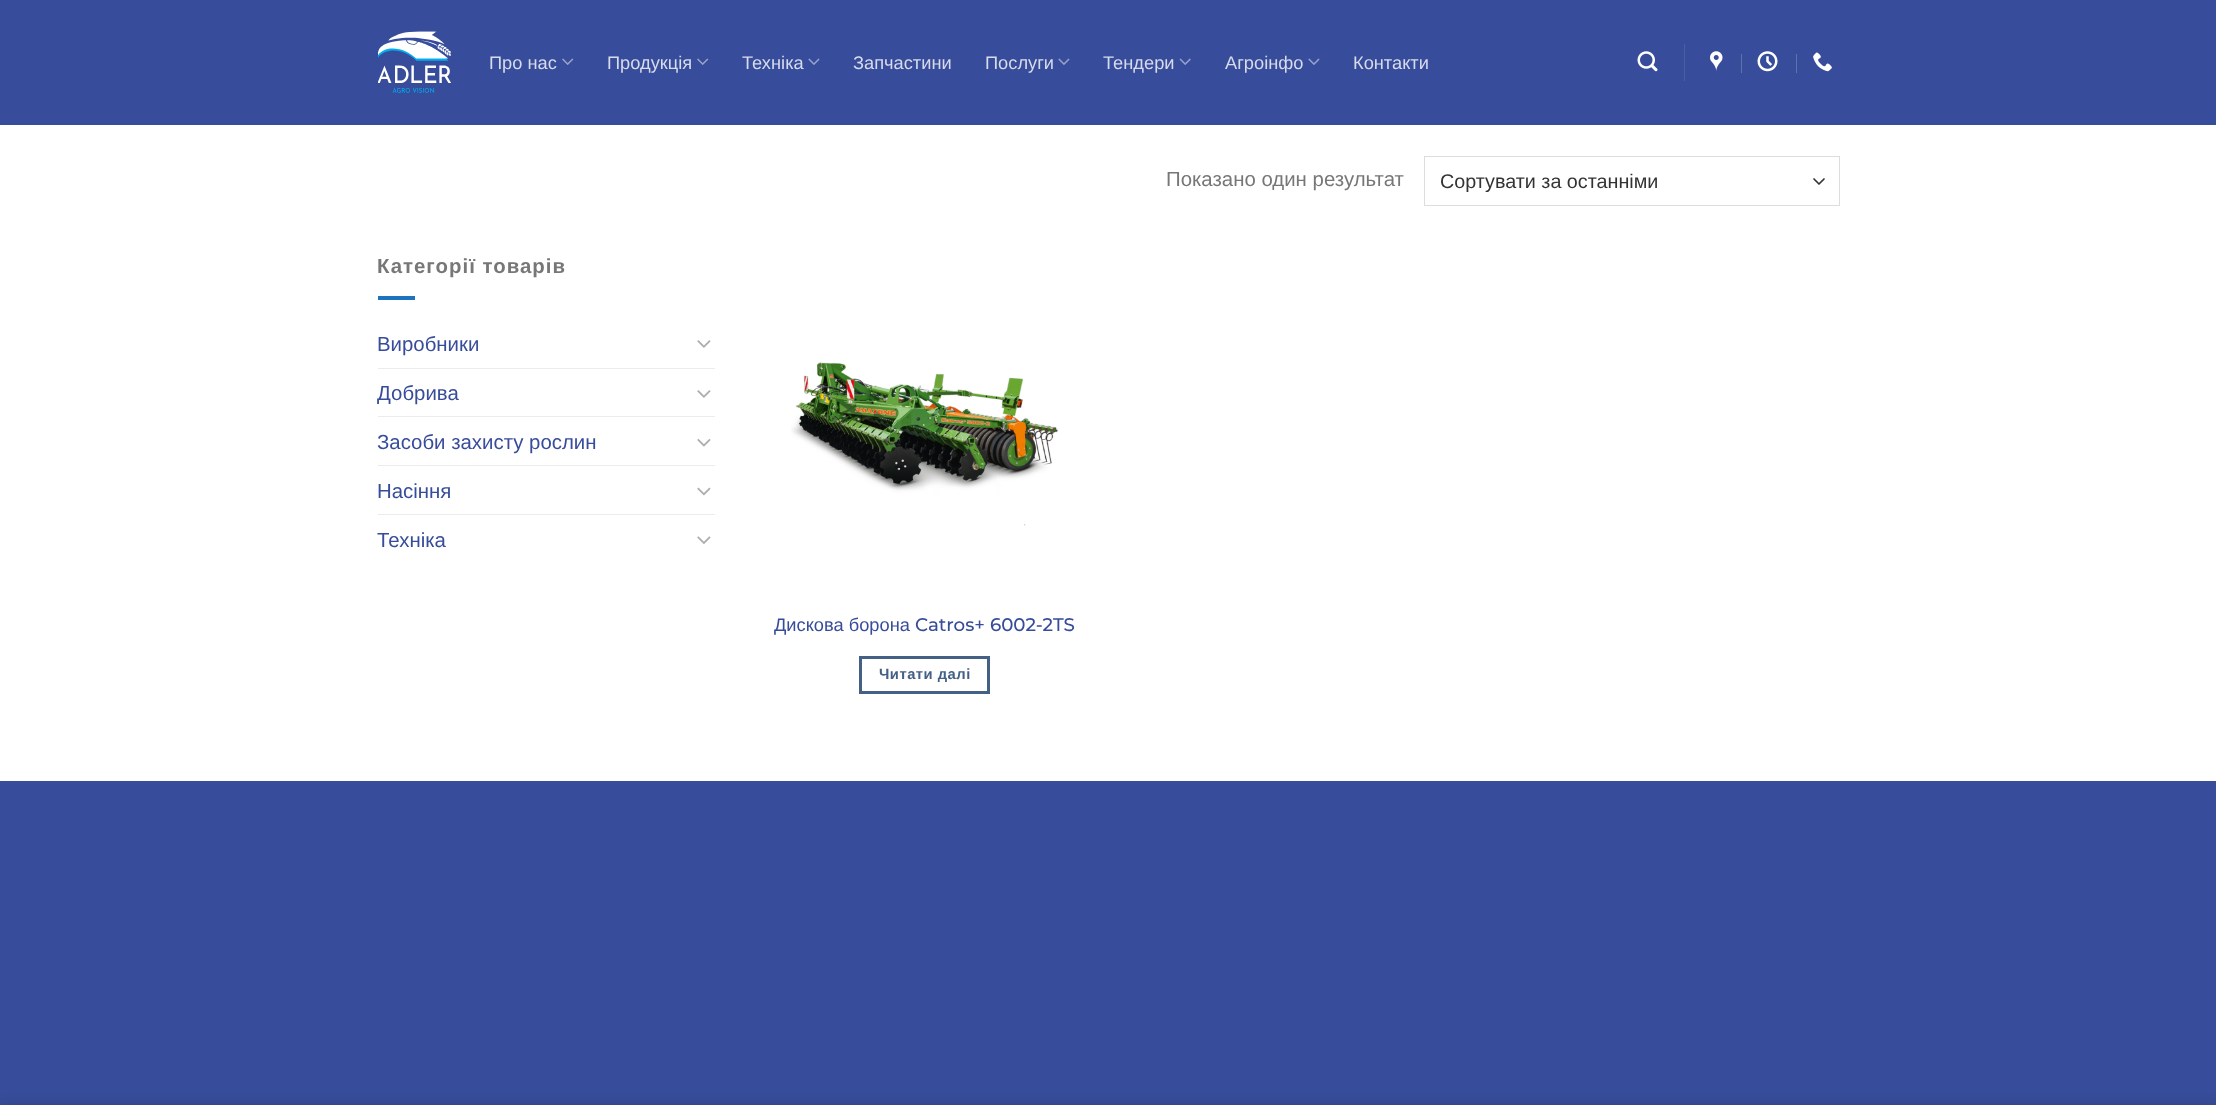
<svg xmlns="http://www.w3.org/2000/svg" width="2216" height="1105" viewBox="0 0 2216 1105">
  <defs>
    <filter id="blur1" x="-50%" y="-200%" width="200%" height="500%"><feGaussianBlur stdDeviation="5.5"/></filter>
  </defs>
  <rect width="100%" height="100%" fill="#374c9a"/>
  <rect x="0" y="125" width="2216" height="656" fill="#ffffff"/>
  <image x="378" y="31" width="73" height="62" href="img1.png"/>
  <text x="489" y="69" font-family="Liberation Sans" font-size="18.25" fill="#d7dbeb">Про нас</text>
  <image x="562" y="58" width="12" height="7" href="img2.png"/>
  <text x="607" y="69" font-family="Liberation Sans" font-size="18.25" fill="#d7dbeb">Продукція</text>
  <image x="697" y="58" width="12" height="7" href="img2.png"/>
  <text x="742" y="69" font-family="Liberation Sans" font-size="18.25" fill="#d7dbeb">Техніка</text>
  <image x="808" y="58" width="12" height="7" href="img3.png"/>
  <text x="853" y="69" font-family="Liberation Sans" font-size="18.25" fill="#d7dbeb">Запчастини</text>
  <text x="985" y="69" font-family="Liberation Sans" font-size="18.25" fill="#d7dbeb">Послуги</text>
  <image x="1058" y="58" width="12" height="7" href="img3.png"/>
  <text x="1103" y="69" font-family="Liberation Sans" font-size="18.25" fill="#d7dbeb">Тендери</text>
  <image x="1179" y="58" width="12" height="7" href="img4.png"/>
  <text x="1225" y="69" font-family="Liberation Sans" font-size="18.25" fill="#d7dbeb">Агроінфо</text>
  <image x="1308" y="58" width="12" height="7" href="img3.png"/>
  <text x="1353" y="69" font-family="Liberation Sans" font-size="18.25" fill="#d7dbeb">Контакти</text>
  <image x="1637" y="51" width="21" height="21" href="img5.png"/>
  <rect x="1684" y="44" width="1" height="37" fill="#4b5ea4"/>
  <image x="1710" y="51" width="13" height="20" href="img6.png"/>
  <rect x="1741" y="54" width="1" height="19" fill="#5f70ae"/>
  <image x="1757" y="51" width="21" height="21" href="img7.png"/>
  <rect x="1796" y="54" width="1" height="19" fill="#5f70ae"/>
  <image x="1813" y="52" width="19" height="20" href="img8.png"/>
  <text x="1166" y="186" font-family="Liberation Sans" font-size="20.4" fill="#777777">Показано один результат</text>
  <path d="M1814 179L1819 184L1824 179" fill="none" stroke="#333333" stroke-width="1.7" stroke-linecap="round" stroke-linejoin="round"/>
  <rect x="1424.5" y="156.5" width="415" height="49" fill="none" stroke="#dddddd"/>
  <text x="1440" y="188" font-family="Liberation Sans" font-size="19.75" fill="#333333">Сортувати за останніми</text>
  <text x="377" y="273" font-family="Liberation Sans" font-size="20.4" font-weight="bold" letter-spacing="1" fill="#777777">Категорії товарів</text>
  <rect x="378" y="296" width="37" height="4" fill="#1e73be"/>
  <text x="377" y="351" font-family="Liberation Sans" font-size="20.4" fill="#374c9a">Виробники</text>
  <image x="697" y="340" width="14" height="8" href="img9.png"/>
  <rect x="378" y="368" width="337" height="1" fill="#ececec"/>
  <text x="377" y="400" font-family="Liberation Sans" font-size="20.4" fill="#374c9a">Добрива</text>
  <image x="697" y="390" width="14" height="8" href="img9.png"/>
  <rect x="378" y="416" width="337" height="1" fill="#ececec"/>
  <text x="377" y="449" font-family="Liberation Sans" font-size="20.4" fill="#374c9a">Засоби захисту рослин</text>
  <image x="697" y="439" width="14" height="8" href="img10.png"/>
  <rect x="378" y="465" width="337" height="1" fill="#ececec"/>
  <text x="377" y="498" font-family="Liberation Sans" font-size="20.4" fill="#374c9a">Насіння</text>
  <image x="697" y="487" width="14" height="9" href="img11.png"/>
  <rect x="378" y="514" width="337" height="1" fill="#ececec"/>
  <text x="377" y="547" font-family="Liberation Sans" font-size="20.4" fill="#374c9a">Техніка</text>
  <image x="697" y="536" width="14" height="8" href="img12.png"/>
  <image x="791" y="362" width="267" height="164" href="img13.png"/>
  <text x="774" y="631" font-family="Liberation Sans" font-size="18.25" fill="#374c9a">Дискова борона</text>
  <text x="915" y="631" font-family="Montserrat" font-size="18.25" font-weight="500" fill="#374c9a">Catros+ 6002-2TS</text>
  <rect x="860.5" y="657.5" width="128" height="35" fill="none" stroke="#446084" stroke-width="3"/>
  <text x="879" y="679" font-family="Liberation Sans" font-size="14.75" font-weight="bold" letter-spacing="0.5" fill="#446084">Читати далі</text>
  <rect x="0" y="1105" width="2216" height="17" fill="#000000" fill-opacity="0.14" filter="url(#blur1)"/>
</svg>
